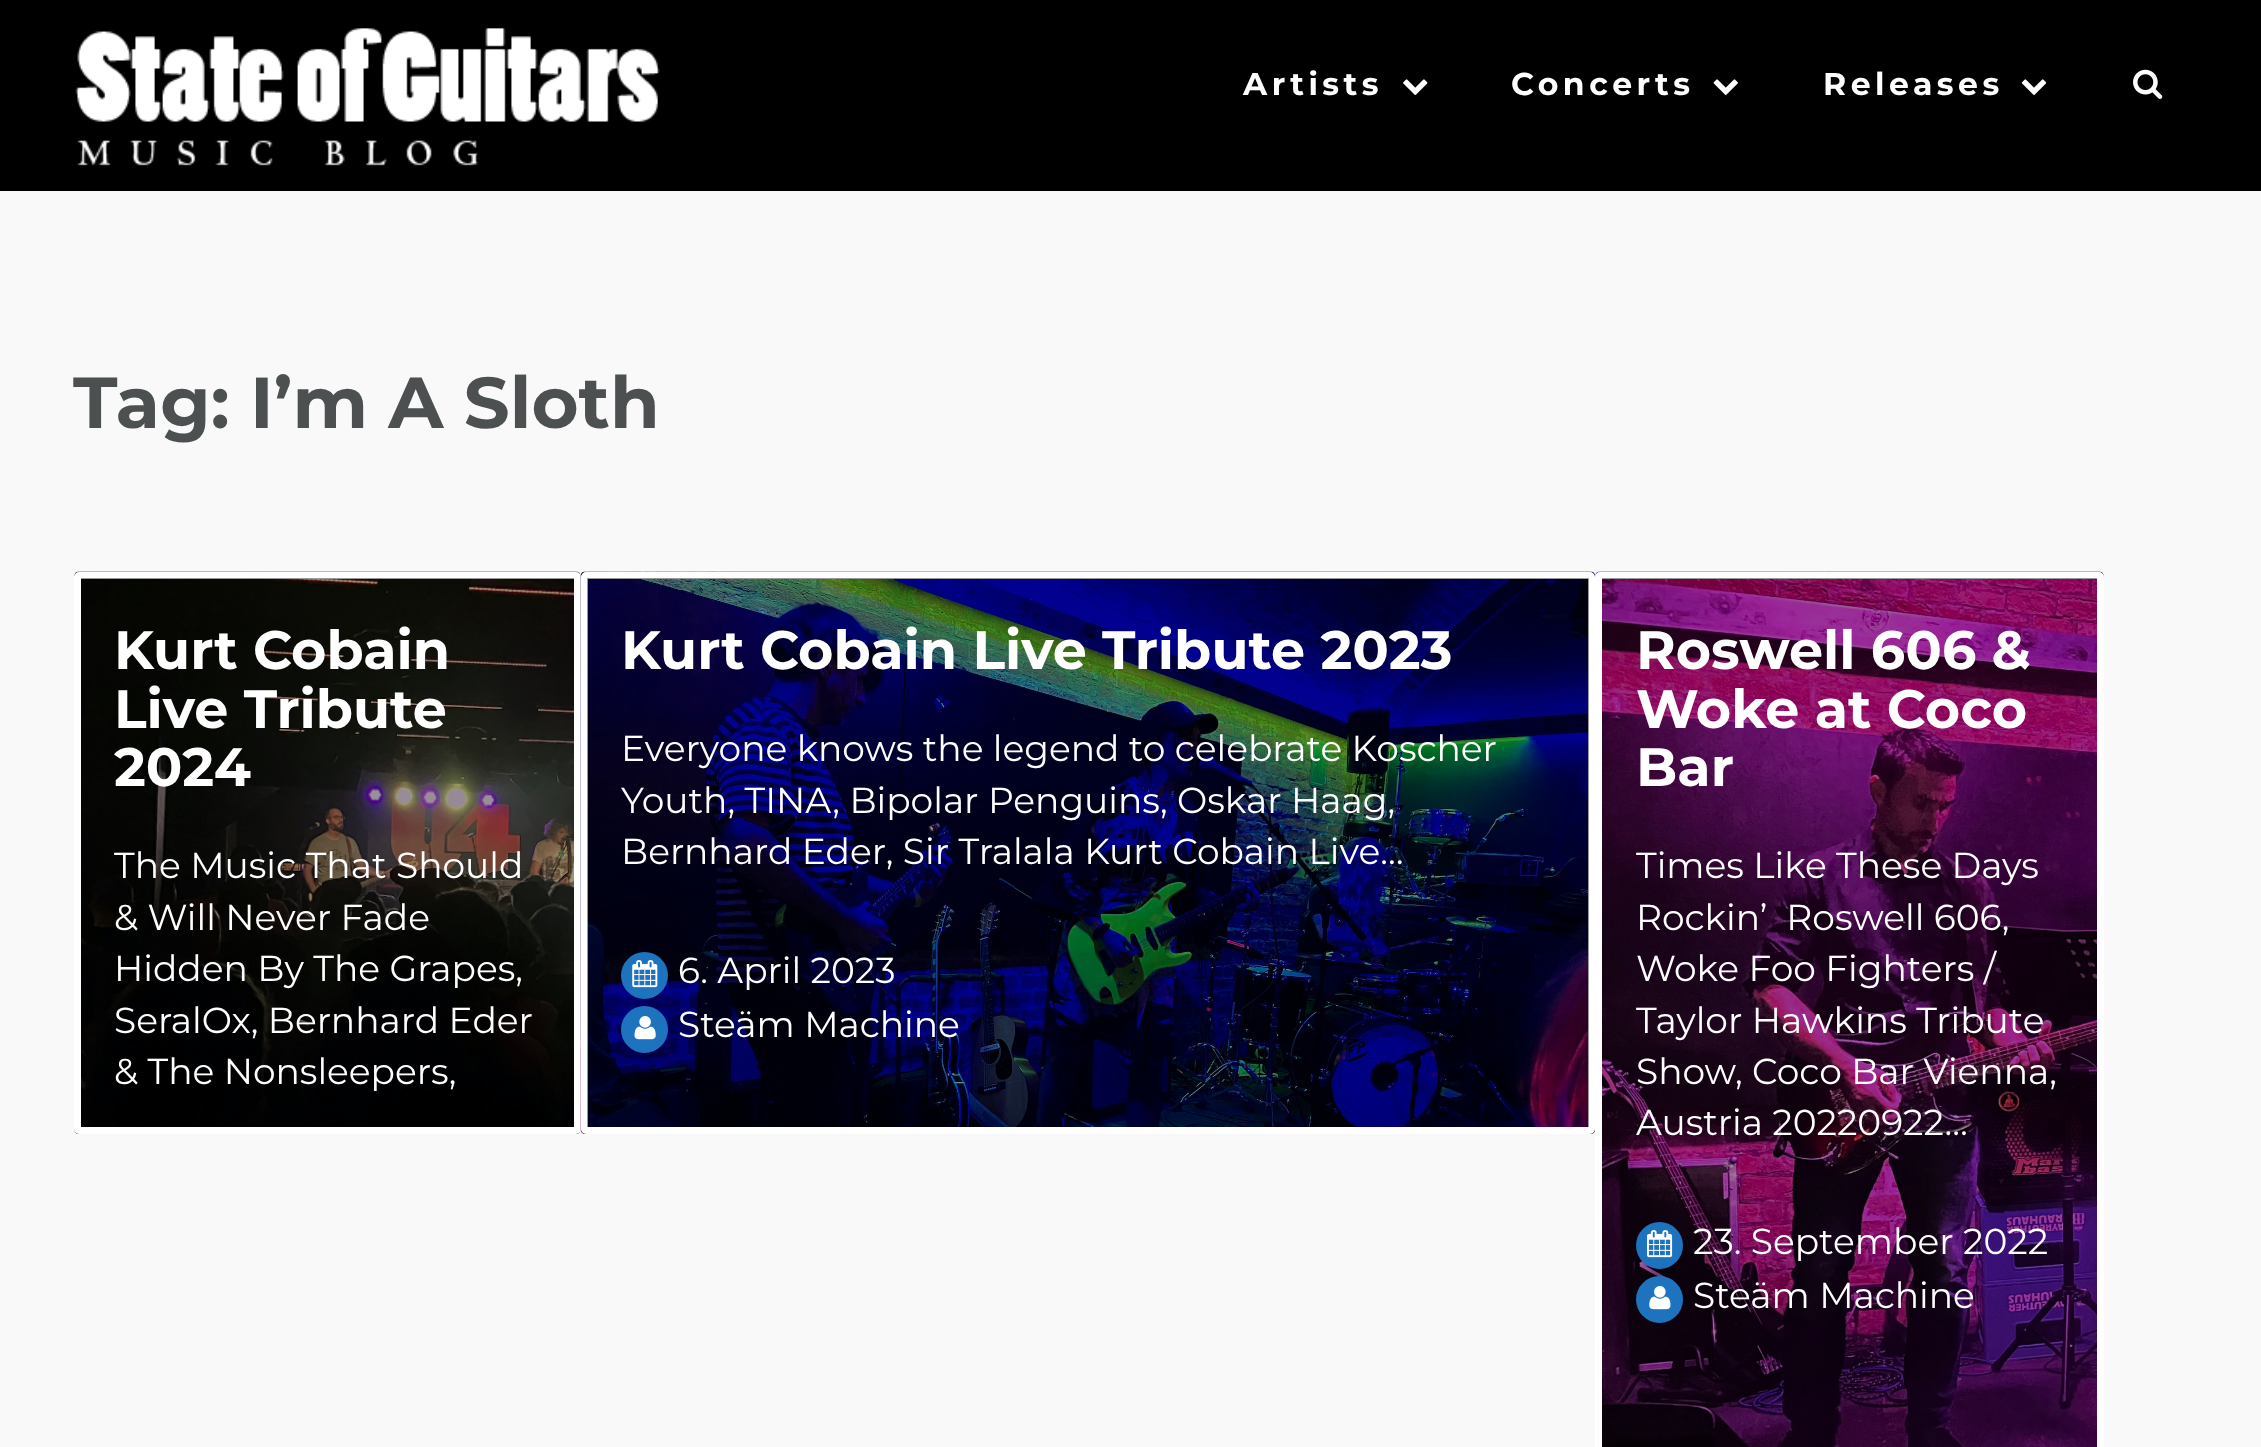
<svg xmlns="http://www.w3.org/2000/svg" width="2261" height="1447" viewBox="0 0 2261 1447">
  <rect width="100%" height="100%" fill="#f9f9f9"/>
  <rect x="0" y="0" width="2261" height="191" fill="#000000"/>
  <image x="75" y="28" width="585" height="138" href="img1.png"/>
  <text x="1243" y="95" font-family="Montserrat" font-size="31.5" font-weight="bold" letter-spacing="4.5" fill="#ffffff">Artists</text>
  <image x="1403" y="79" width="25" height="16" href="img2.png"/>
  <text x="1511" y="95" font-family="Montserrat" font-size="31.5" font-weight="bold" letter-spacing="4.5" fill="#ffffff">Concerts</text>
  <image x="1713" y="79" width="25" height="16" href="img3.png"/>
  <text x="1823" y="95" font-family="Montserrat" font-size="31.5" font-weight="bold" letter-spacing="4.5" fill="#ffffff">Releases</text>
  <image x="2021" y="79" width="26" height="16" href="img4.png"/>
  <image x="2133" y="69" width="30" height="30" href="img5.png"/>
  <text x="73" y="428" font-family="Montserrat" font-size="72" font-weight="bold" fill="#4d5051">Tag: I’m A Sloth</text>
  <image x="74" y="571" width="507" height="563" href="img6.png"/>
  <rect x="77.5" y="575.5" width="500" height="555" rx="1.5" fill="none" stroke="#ffffff" stroke-width="7"/>
  <rect x="81" y="578" width="493" height="549" fill="#000000" fill-opacity="0.4"/>
  <text x="114" y="669" font-family="Montserrat" font-size="54" font-weight="bold" fill="#ffffff">Kurt Cobain</text>
  <text x="114" y="728" font-family="Montserrat" font-size="54" font-weight="bold" fill="#ffffff">Live Tribute</text>
  <text x="114" y="786" font-family="Montserrat" font-size="54" font-weight="bold" fill="#ffffff">2024</text>
  <text x="114" y="878" font-family="Montserrat" font-size="36" fill="#ffffff">The Music That Should</text>
  <text x="114" y="930" font-family="Montserrat" font-size="36" fill="#ffffff">&amp; Will Never Fade</text>
  <text x="114" y="981" font-family="Montserrat" font-size="36" fill="#ffffff">Hidden By The Grapes,</text>
  <text x="114" y="1033" font-family="Montserrat" font-size="36" fill="#ffffff">SeralOx, Bernhard Eder</text>
  <text x="114" y="1084" font-family="Montserrat" font-size="36" fill="#ffffff">&amp; The Nonsleepers,</text>
  <image x="580" y="571" width="1016" height="563" href="img7.png"/>
  <rect x="584.5" y="575.5" width="1007" height="555" rx="1.5" fill="none" stroke="#ffffff" stroke-width="7"/>
  <rect x="587" y="578" width="1002" height="549" fill="#000000" fill-opacity="0.4"/>
  <text x="621" y="669" font-family="Montserrat" font-size="54" font-weight="bold" fill="#ffffff">Kurt Cobain Live Tribute 2023</text>
  <text x="621" y="761" font-family="Montserrat" font-size="36" fill="#ffffff">Everyone knows the legend to celebrate Koscher</text>
  <text x="621" y="813" font-family="Montserrat" font-size="36" fill="#ffffff">Youth, TINA, Bipolar Penguins, Oskar Haag,</text>
  <text x="621" y="864" font-family="Montserrat" font-size="36" fill="#ffffff">Bernhard Eder, Sir Tralala Kurt Cobain Live…</text>
  <circle cx="644.5" cy="975.5" r="23.5" fill="#1e73be"/>
  <image x="632" y="960" width="26" height="28" href="img8.png"/>
  <text x="678" y="983" font-family="Montserrat" font-size="36" fill="#ffffff">6. April 2023</text>
  <circle cx="644.5" cy="1029.5" r="23.5" fill="#1e73be"/>
  <image x="634" y="1016" width="22" height="24" href="img9.png"/>
  <text x="678" y="1037" font-family="Montserrat" font-size="36" fill="#ffffff">Steäm Machine</text>
  <image x="1595" y="571" width="509" height="876" href="img10.png"/>
  <rect x="1598.5" y="575.5" width="502" height="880" rx="1.5" fill="none" stroke="#ffffff" stroke-width="7"/>
  <rect x="1602" y="578" width="495" height="869" fill="#000000" fill-opacity="0.4"/>
  <text x="1636" y="669" font-family="Montserrat" font-size="54" font-weight="bold" fill="#ffffff">Roswell 606 &amp;</text>
  <text x="1636" y="728" font-family="Montserrat" font-size="54" font-weight="bold" fill="#ffffff">Woke at Coco</text>
  <text x="1636" y="786" font-family="Montserrat" font-size="54" font-weight="bold" fill="#ffffff">Bar</text>
  <text x="1636" y="878" font-family="Montserrat" font-size="36" fill="#ffffff">Times Like These Days</text>
  <text x="1636" y="930" font-family="Montserrat" font-size="36" fill="#ffffff" xml:space="preserve">Rockin’  Roswell 606,</text>
  <text x="1636" y="981" font-family="Montserrat" font-size="36" fill="#ffffff">Woke Foo Fighters /</text>
  <text x="1636" y="1033" font-family="Montserrat" font-size="36" fill="#ffffff">Taylor Hawkins Tribute</text>
  <text x="1636" y="1084" font-family="Montserrat" font-size="36" fill="#ffffff">Show, Coco Bar Vienna,</text>
  <text x="1636" y="1135" font-family="Montserrat" font-size="36" fill="#ffffff">Austria 20220922…</text>
  <circle cx="1659.5" cy="1245.5" r="23.5" fill="#1e73be"/>
  <image x="1647" y="1230" width="26" height="28" href="img11.png"/>
  <text x="1693" y="1254" font-family="Montserrat" font-size="36" fill="#ffffff">23. September 2022</text>
  <circle cx="1659.5" cy="1299.5" r="23.5" fill="#1e73be"/>
  <image x="1649" y="1286" width="22" height="24" href="img12.png"/>
  <text x="1693" y="1308" font-family="Montserrat" font-size="36" fill="#ffffff">Steäm Machine</text>
</svg>
